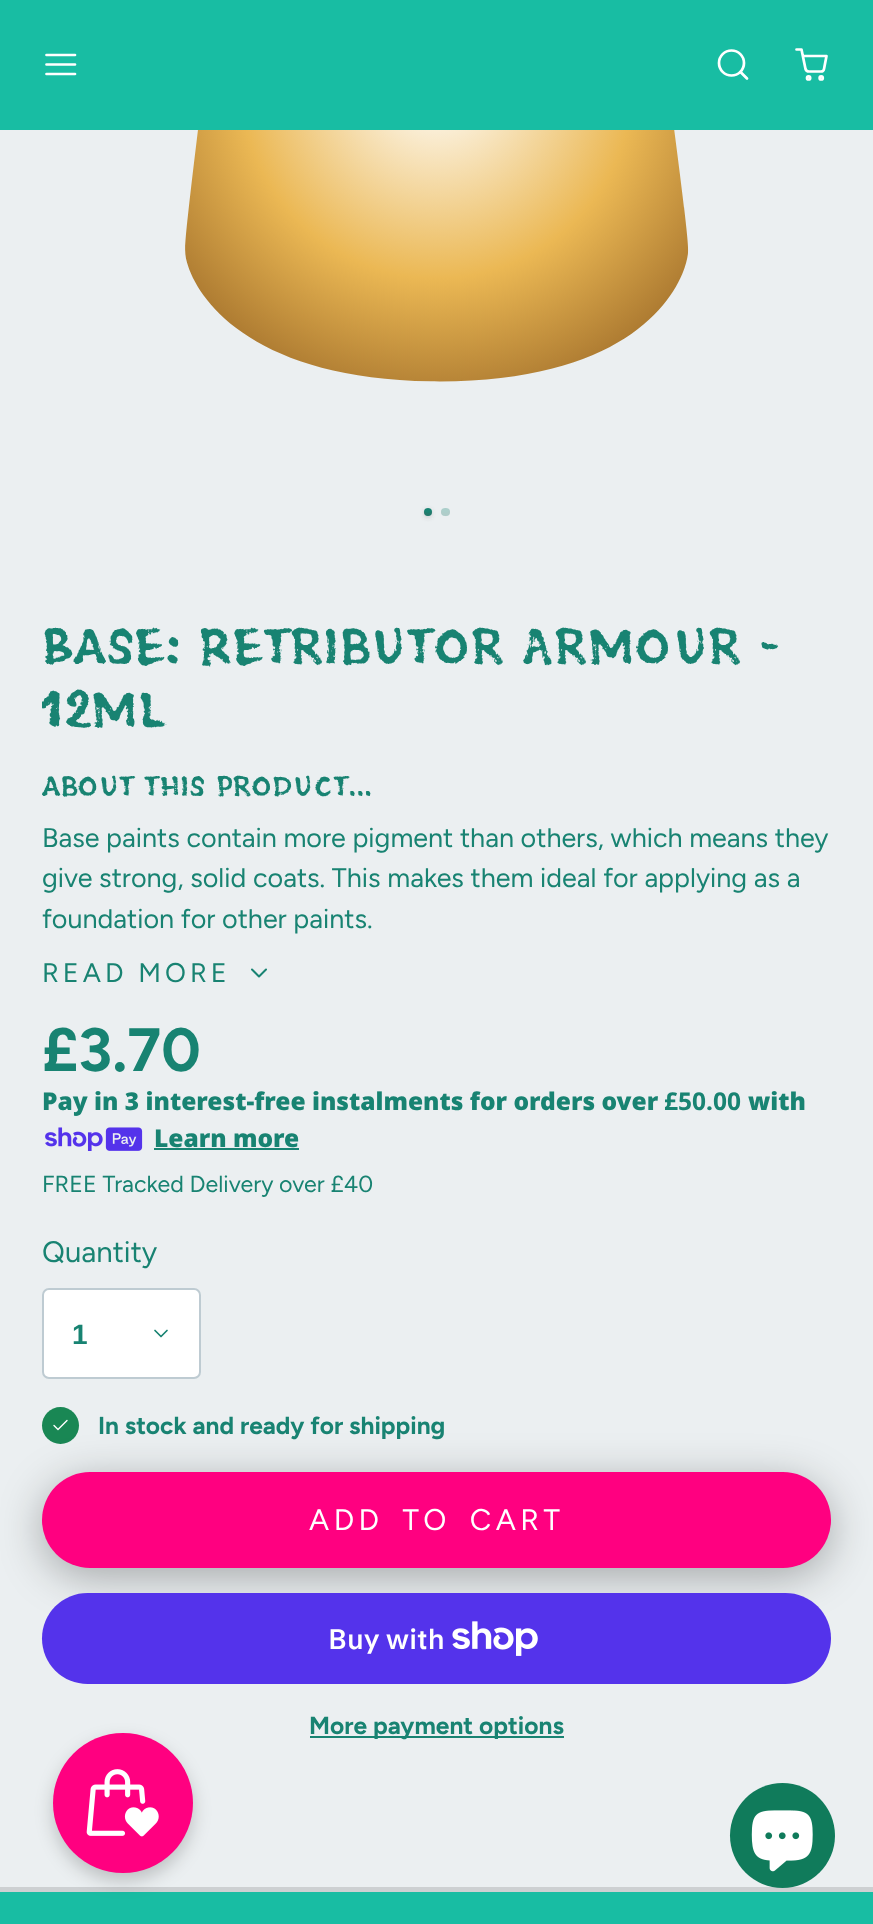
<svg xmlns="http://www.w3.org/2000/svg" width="873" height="1924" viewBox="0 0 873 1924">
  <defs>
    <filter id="blur1" x="-50%" y="-200%" width="200%" height="500%"><feGaussianBlur stdDeviation="2"/></filter>
    <clipPath id="clip1"><rect x="42" y="614" width="789" height="126"/></clipPath>
    <filter id="blur2" x="-50%" y="-200%" width="200%" height="500%"><feGaussianBlur stdDeviation="22"/></filter>
    <filter id="blur3" x="-50%" y="-200%" width="200%" height="500%"><feGaussianBlur stdDeviation="9"/></filter>
  </defs>
  <rect width="100%" height="100%" fill="#ebeff1"/>
  <rect x="0" y="0" width="873" height="130" fill="#18bda3"/>
  <path d="M46.5 64.5H75M46.5 55H75M46.5 74H75" fill="none" stroke="#ffffff" stroke-width="2.7" stroke-linecap="round" stroke-linejoin="round"/>
  <circle cx="731.5" cy="63" r="12.5" fill="none" stroke="#ffffff" stroke-width="2.7"/>
  <path d="M747 78.5L740.5 72" fill="none" stroke="#ffffff" stroke-width="2.7" stroke-linecap="round" stroke-linejoin="round"/>
  <circle cx="808.6" cy="77.9" r="1.6" fill="none" stroke="#ffffff" stroke-width="2.7"/>
  <circle cx="821.2" cy="77.9" r="1.6" fill="none" stroke="#ffffff" stroke-width="2.7"/>
  <path d="M796.5 49.5H801.5L805.5 69C806 70.5 807.5 71.5 809 71.5H821C822.5 71.5 824 70.5 824 69L826.5 56H804" fill="none" stroke="#ffffff" stroke-width="2.7" stroke-linecap="round" stroke-linejoin="round"/>
  <rect x="0" y="1887" width="873" height="5" fill="#cdd0d2"/>
  <image x="185" y="130" width="504" height="252" href="img1.png"/>
  <rect x="424" y="509" width="8" height="9" rx="4" fill="#545454" fill-opacity="0.2" filter="url(#blur1)"/>
  <circle cx="428" cy="512" r="4" fill="#188372"/>
  <path d="M424 511C422.5 517.5 433.5 517.5 432 511C430 513.5 426 513.5 424 511Z" fill="#545454" fill-opacity="0.2"/>
  <rect x="441" y="508" width="9" height="8" rx="4" fill="#accfcb"/>
  <path d="M441.5 510C438.5 515.5 448.5 519 450 513C450 512 450 510.5 449.5 510C448.5 513.5 442.5 514 441.5 510Z" fill="#bec1c2" fill-opacity="0.2"/>
  <text x="42" y="664" font-family="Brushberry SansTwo" font-size="52.5" fill="#188372">Base: Retributor Armour -</text>
  <g clip-path="url(#clip1)">
    <text x="42" y="727" font-family="Brushberry SansTwo" font-size="52.5" fill="#188372">12ml</text>
  </g>
  <text x="42" y="796" font-family="Brushberry SansTwo" font-size="29.4" fill="#188372">about this product...</text>
  <text x="42" y="847" font-family="Figtree" font-size="26.95" fill="#188372">Base paints contain more pigment than others, which means they</text>
  <text x="42" y="887" font-family="Figtree" font-size="26.95" fill="#188372">give strong, solid coats. This makes them ideal for applying as a</text>
  <text x="42" y="928" font-family="Figtree" font-size="26.95" fill="#188372">foundation for other paints.</text>
  <text x="42" y="982" font-family="Figtree" font-size="26.95" letter-spacing="4" fill="#188372">READ MORE</text>
  <path d="M252 969.5L259 976.5L266 969.5" fill="none" stroke="#188372" stroke-width="2" stroke-linecap="round" stroke-linejoin="round"/>
  <text x="42" y="1071" font-family="Figtree" font-size="61" font-weight="bold" fill="#188372">£3.70</text>
  <text x="42" y="1110" font-family="Noto Sans" font-size="24.5" font-weight="900" fill="#188372">Pay in 3 interest-free instalments for orders over</text>
  <text x="664" y="1110" font-family="Noto Sans" font-size="24.5" font-weight="bold" fill="#188372">£50.00</text>
  <text x="748" y="1110" font-family="Noto Sans" font-size="24.5" font-weight="900" fill="#188372">with</text>
  <image x="45" y="1127" width="98" height="24" href="img2.png"/>
  <text x="154" y="1147" font-family="Noto Sans" font-size="24.5" font-weight="900" fill="#188372">Learn more</text>
  <rect x="154" y="1148" width="145" height="2" fill="#188372"/>
  <text x="42" y="1192" font-family="Figtree" font-size="23.25" fill="#188372">FREE Tracked Delivery over £40</text>
  <text x="42" y="1262" font-family="Figtree" font-size="29.4" fill="#188372">Quantity</text>
  <rect x="43" y="1289" width="157" height="89" rx="6" fill="#ffffff" stroke="#becbd2" stroke-width="2"/>
  <text x="72" y="1344" font-family="Liberation Sans" font-size="28" font-weight="bold" fill="#188372">1</text>
  <path d="M155 1330.5L161 1336.5L167 1330.5" fill="none" stroke="#188372" stroke-width="1.7" stroke-linecap="round" stroke-linejoin="round"/>
  <circle cx="60.5" cy="1425.5" r="18.5" fill="#198754"/>
  <path d="M67 1420.5L58 1429.5L54 1425.5" fill="none" stroke="#ffffff" stroke-width="1.4" stroke-linecap="round" stroke-linejoin="round"/>
  <text x="98" y="1434" font-family="Figtree" font-size="24.5" font-weight="bold" fill="#188372">In stock and ready for shipping</text>
  <rect x="42" y="1481" width="789" height="96" rx="48" fill="#000000" fill-opacity="0.3" filter="url(#blur2)"/>
  <rect x="42" y="1472" width="789" height="96" rx="48" fill="#ff0080"/>
  <text x="309" y="1530" word-spacing="7" font-family="Figtree" font-size="29.75" letter-spacing="4.5" fill="#ffffff">ADD TO CART</text>
  <rect x="42" y="1593" width="789" height="91" rx="45.5" fill="#5433eb"/>
  <text x="328" y="1649" font-family="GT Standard" font-size="28" font-weight="600" fill="#ffffff">Buy with</text>
  <image x="452" y="1621" width="86" height="35" href="img3.png"/>
  <rect x="310" y="1736" width="254" height="2" fill="#188372"/>
  <text x="309" y="1734" font-family="Figtree" font-size="24.5" font-weight="bold" fill="#188372">More payment options</text>
  <rect x="0" y="1892" width="873" height="32" fill="#18bda3"/>
  <rect x="53" y="1741" width="140" height="140" rx="70" fill="#000000" fill-opacity="0.2" filter="url(#blur3)"/>
  <circle cx="123" cy="1803" r="70" fill="#ff0080"/>
  <image x="86" y="1769" width="73" height="68" href="img4.png"/>
  <circle cx="782.5" cy="1835.5" r="52.5" fill="#107b5b"/>
  <image x="751" y="1810" width="62" height="62" href="img5.png"/>
</svg>
